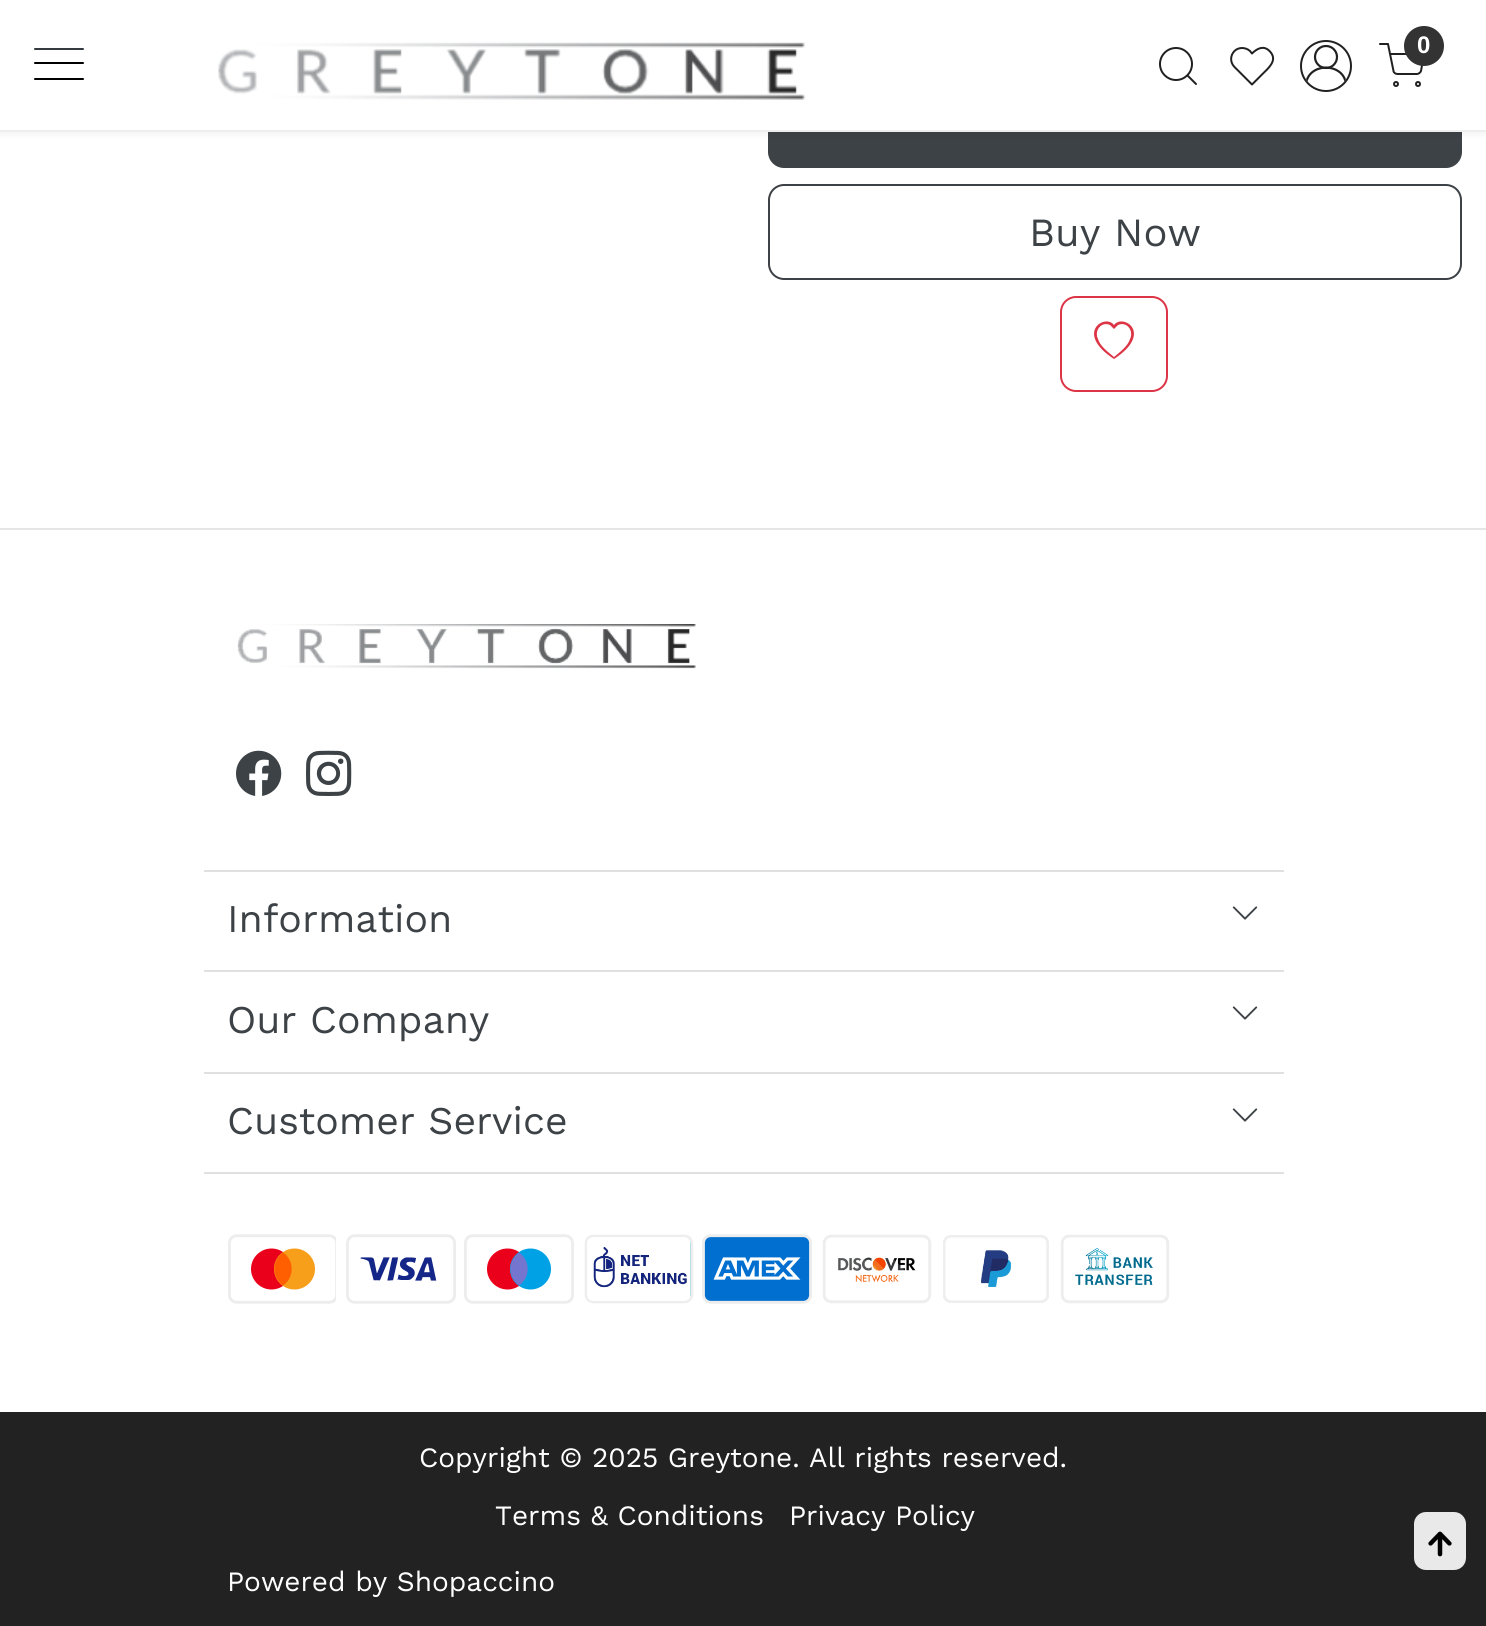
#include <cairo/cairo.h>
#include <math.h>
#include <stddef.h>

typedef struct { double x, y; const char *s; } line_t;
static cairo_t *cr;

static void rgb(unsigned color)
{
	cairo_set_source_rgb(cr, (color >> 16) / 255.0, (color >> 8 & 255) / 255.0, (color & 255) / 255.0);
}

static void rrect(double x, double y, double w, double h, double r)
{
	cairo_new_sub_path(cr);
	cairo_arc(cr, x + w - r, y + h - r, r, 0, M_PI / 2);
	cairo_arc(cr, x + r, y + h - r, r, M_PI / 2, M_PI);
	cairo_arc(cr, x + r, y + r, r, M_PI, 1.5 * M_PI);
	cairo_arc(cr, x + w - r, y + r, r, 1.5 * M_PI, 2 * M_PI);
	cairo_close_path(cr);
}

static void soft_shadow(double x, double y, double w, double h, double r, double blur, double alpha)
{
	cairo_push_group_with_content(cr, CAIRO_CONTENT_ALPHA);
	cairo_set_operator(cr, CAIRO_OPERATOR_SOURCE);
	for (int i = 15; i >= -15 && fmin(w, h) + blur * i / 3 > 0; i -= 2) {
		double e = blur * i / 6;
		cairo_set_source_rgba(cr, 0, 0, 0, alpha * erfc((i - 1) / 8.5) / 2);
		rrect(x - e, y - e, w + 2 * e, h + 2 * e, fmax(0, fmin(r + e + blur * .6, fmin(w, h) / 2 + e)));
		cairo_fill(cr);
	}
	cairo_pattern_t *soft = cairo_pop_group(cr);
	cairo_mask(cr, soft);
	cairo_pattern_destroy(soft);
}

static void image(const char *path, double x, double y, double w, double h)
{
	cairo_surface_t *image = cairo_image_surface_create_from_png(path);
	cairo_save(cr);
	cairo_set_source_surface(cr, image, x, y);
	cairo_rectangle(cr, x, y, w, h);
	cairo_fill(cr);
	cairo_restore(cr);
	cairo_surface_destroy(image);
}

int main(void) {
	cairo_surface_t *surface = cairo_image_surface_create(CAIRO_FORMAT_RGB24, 1486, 1626);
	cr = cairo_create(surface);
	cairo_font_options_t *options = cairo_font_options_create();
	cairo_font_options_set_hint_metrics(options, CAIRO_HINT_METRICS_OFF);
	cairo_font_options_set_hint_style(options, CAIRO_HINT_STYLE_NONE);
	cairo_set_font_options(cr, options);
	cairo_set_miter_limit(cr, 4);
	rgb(0xffffff);
	cairo_paint(cr);
	rgb(0x3d4246);
	rrect(769, 85, 692, 82, 15);
	cairo_fill_preserve(cr);
	cairo_stroke(cr);
	rgb(0x05050a);
	soft_shadow(0, 0, 1486, 132, 0, 5, 0.08);
	rgb(0xeeeeee);
	cairo_rectangle(cr, 0, 130, 1486, 2);
	cairo_fill(cr);
	rgb(0xffffff);
	cairo_rectangle(cr, 0, 0, 1486, 130);
	cairo_fill(cr);
	rgb(0x000000);
	rrect(34, 78, 50, 2, 1);
	cairo_fill(cr);
	rrect(34, 62, 50, 2, 1);
	cairo_fill(cr);
	rgb(0x343a40);
	rrect(34, 48, 50, 2, 1);
	cairo_fill(cr);
	image("img/1.png", 218, 42, 588, 58);
	cairo_arc(cr, 1176, 64, 16, 0, 2 * M_PI);
	rgb(0x212121);
	cairo_stroke(cr);
	cairo_new_path(cr);
	cairo_move_to(cr, 1196, 84);
	cairo_line_to(cr, 1187.5, 75.5);
	cairo_set_line_cap(cr, CAIRO_LINE_CAP_ROUND);
	cairo_set_line_join(cr, CAIRO_LINE_JOIN_ROUND);
	cairo_stroke(cr);
	cairo_new_path(cr);
	cairo_move_to(cr, 1269.5, 51);
	cairo_curve_to(cr, 1263.5, 45, 1257, 48.5, 1252, 53.5);
	cairo_line_to(cr, 1250, 51);
	cairo_curve_to(cr, 1245.5, 47, 1238.5, 47, 1234.5, 51);
	cairo_curve_to(cr, 1230, 55.5, 1230, 62.5, 1234.5, 67);
	cairo_line_to(cr, 1252, 84.5);
	cairo_line_to(cr, 1262.5, 74);
	cairo_curve_to(cr, 1268.5, 68, 1278.5, 60, 1269.5, 51);
	cairo_close_path(cr);
	cairo_stroke(cr);
	cairo_arc(cr, 1326, 66, 25, 0, 2 * M_PI);
	cairo_set_line_cap(cr, CAIRO_LINE_CAP_BUTT);
	cairo_set_line_join(cr, CAIRO_LINE_JOIN_MITER);
	cairo_stroke(cr);
	cairo_save(cr);
	rrect(1302, 42, 48, 48, 24);
	cairo_clip(cr);
	cairo_new_path(cr);
	cairo_move_to(cr, 1306, 86);
	cairo_curve_to(cr, 1306, 61.5, 1346, 61.5, 1346, 86);
	cairo_set_line_width(cr, 2.2);
	cairo_set_line_cap(cr, CAIRO_LINE_CAP_SQUARE);
	cairo_stroke(cr);
	cairo_restore(cr);
	cairo_arc(cr, 1326, 57, 11, 0, 2 * M_PI);
	cairo_set_line_width(cr, 2.2);
	cairo_stroke(cr);
	cairo_new_path(cr);
	cairo_move_to(cr, 1380, 44);
	cairo_line_to(cr, 1388, 44);
	cairo_line_to(cr, 1393.5, 71);
	cairo_curve_to(cr, 1393.5, 72.5, 1395.5, 74, 1397.5, 74);
	cairo_line_to(cr, 1417, 74);
	cairo_curve_to(cr, 1418.5, 74, 1420.5, 72.5, 1421, 71);
	cairo_line_to(cr, 1424, 54);
	cairo_line_to(cr, 1390, 54);
	cairo_set_line_width(cr, 2);
	cairo_set_line_cap(cr, CAIRO_LINE_CAP_ROUND);
	cairo_set_line_join(cr, CAIRO_LINE_JOIN_ROUND);
	cairo_stroke(cr);
	rgb(0x333333);
	cairo_arc(cr, 1424, 46, 20, 0, 2 * M_PI);
	cairo_fill(cr);
	cairo_arc(cr, 1396, 84, 2, 0, 2 * M_PI);
	rgb(0x212121);
	cairo_set_line_cap(cr, CAIRO_LINE_CAP_BUTT);
	cairo_set_line_join(cr, CAIRO_LINE_JOIN_MITER);
	cairo_stroke(cr);
	cairo_arc(cr, 1418, 84, 2, 0, 2 * M_PI);
	cairo_stroke(cr);
	rrect(769, 185, 692, 94, 15);
	rgb(0x3d4246);
	cairo_stroke(cr);
	rrect(1061, 297, 106, 94, 15);
	rgb(0xdc3545);
	cairo_stroke(cr);
	cairo_new_path(cr);
	cairo_move_to(cr, 1114, 329);
	cairo_line_to(cr, 1110, 325);
	cairo_curve_to(cr, 1101, 321, 1094, 331, 1098, 339);
	cairo_curve_to(cr, 1100, 346, 1108, 352, 1114, 357);
	cairo_curve_to(cr, 1120, 352, 1128, 346, 1130, 339);
	cairo_curve_to(cr, 1134, 331, 1127, 321, 1118, 325);
	cairo_close_path(cr);
	cairo_move_to(cr, 1114, 359);
	cairo_curve_to(cr, 1074, 333, 1105, 313, 1114, 325);
	cairo_curve_to(cr, 1123, 313, 1154, 333, 1114, 359);
	cairo_close_path(cr);
	cairo_fill(cr);
	rgb(0xe6e6e6);
	cairo_rectangle(cr, 0, 528, 1486, 2);
	cairo_fill(cr);
	image("img/2.png", 237, 624, 459, 45);
	image("img/3.png", 236, 750, 46, 46);
	image("img/4.png", 306, 750, 46, 46);
	rgb(0xe0e0e0);
	cairo_rectangle(cr, 204, 870, 1080, 2);
	cairo_fill(cr);
	cairo_rectangle(cr, 204, 970, 1080, 2);
	cairo_fill(cr);
	image("img/5.png", 1232, 906, 26, 14);
	cairo_rectangle(cr, 204, 1072, 1080, 2);
	cairo_fill(cr);
	image("img/5.png", 1232, 1006, 26, 14);
	cairo_rectangle(cr, 204, 1172, 1080, 2);
	cairo_fill(cr);
	image("img/5.png", 1232, 1108, 26, 14);
	image("img/6.png", 228, 1234, 108, 70);
	image("img/7.png", 346, 1234, 110, 70);
	image("img/8.png", 464, 1234, 110, 70);
	image("img/9.png", 584, 1234, 110, 70);
	image("img/10.png", 702, 1234, 110, 70);
	image("img/11.png", 822, 1234, 110, 70);
	image("img/12.png", 943, 1235, 106, 68);
	image("img/13.png", 1060, 1234, 110, 70);
	rgb(0x222222);
	cairo_rectangle(cr, 0, 1412, 1486, 214);
	cairo_fill(cr);
	rgb(0xe9e9e9);
	rrect(1414, 1512, 52, 58, 12);
	cairo_fill(cr);
	image("img/14.png", 1428, 1531, 24, 26);
	cairo_select_font_face(cr, "Liberation Sans", CAIRO_FONT_SLANT_NORMAL, CAIRO_FONT_WEIGHT_BOLD);
	cairo_set_font_size(cr, 24);
	rgb(0xffffff);
	cairo_move_to(cr, 1417, 53);
	cairo_show_text(cr, "0");
	cairo_select_font_face(cr, "Work Sans", CAIRO_FONT_SLANT_NORMAL, CAIRO_FONT_WEIGHT_NORMAL);
	cairo_set_font_size(cr, 40);
	rgb(0x3d4246);
	cairo_move_to(cr, 1029, 246);
	cairo_show_text(cr, "Buy Now");
	cairo_set_font_size(cr, 39.25);
	{
		static const line_t items[] = {
			{227, 932, "Information"},
			{227, 1033, "Our Company"},
			{227, 1134, "Customer Service"},
		};
		for (size_t i = 0; i < sizeof items / sizeof *items; i++) {
			cairo_move_to(cr, items[i].x, items[i].y);
			cairo_show_text(cr, items[i].s);
		}
	}
	cairo_set_font_size(cr, 28);
	rgb(0xffffff);
	{
		static const line_t items[] = {
			{419, 1467, "Copyright © 2025 Greytone. All rights reserved."},
			{495, 1525, "Terms & Conditions"},
			{789, 1525, "Privacy Policy"},
			{227, 1591, "Powered by Shopaccino"},
		};
		for (size_t i = 0; i < sizeof items / sizeof *items; i++) {
			cairo_move_to(cr, items[i].x, items[i].y);
			cairo_show_text(cr, items[i].s);
		}
	}
	cairo_surface_write_to_png(surface, "page.png");
	cairo_font_options_destroy(options);
	cairo_destroy(cr);
	cairo_surface_destroy(surface);
	return 0;
}
